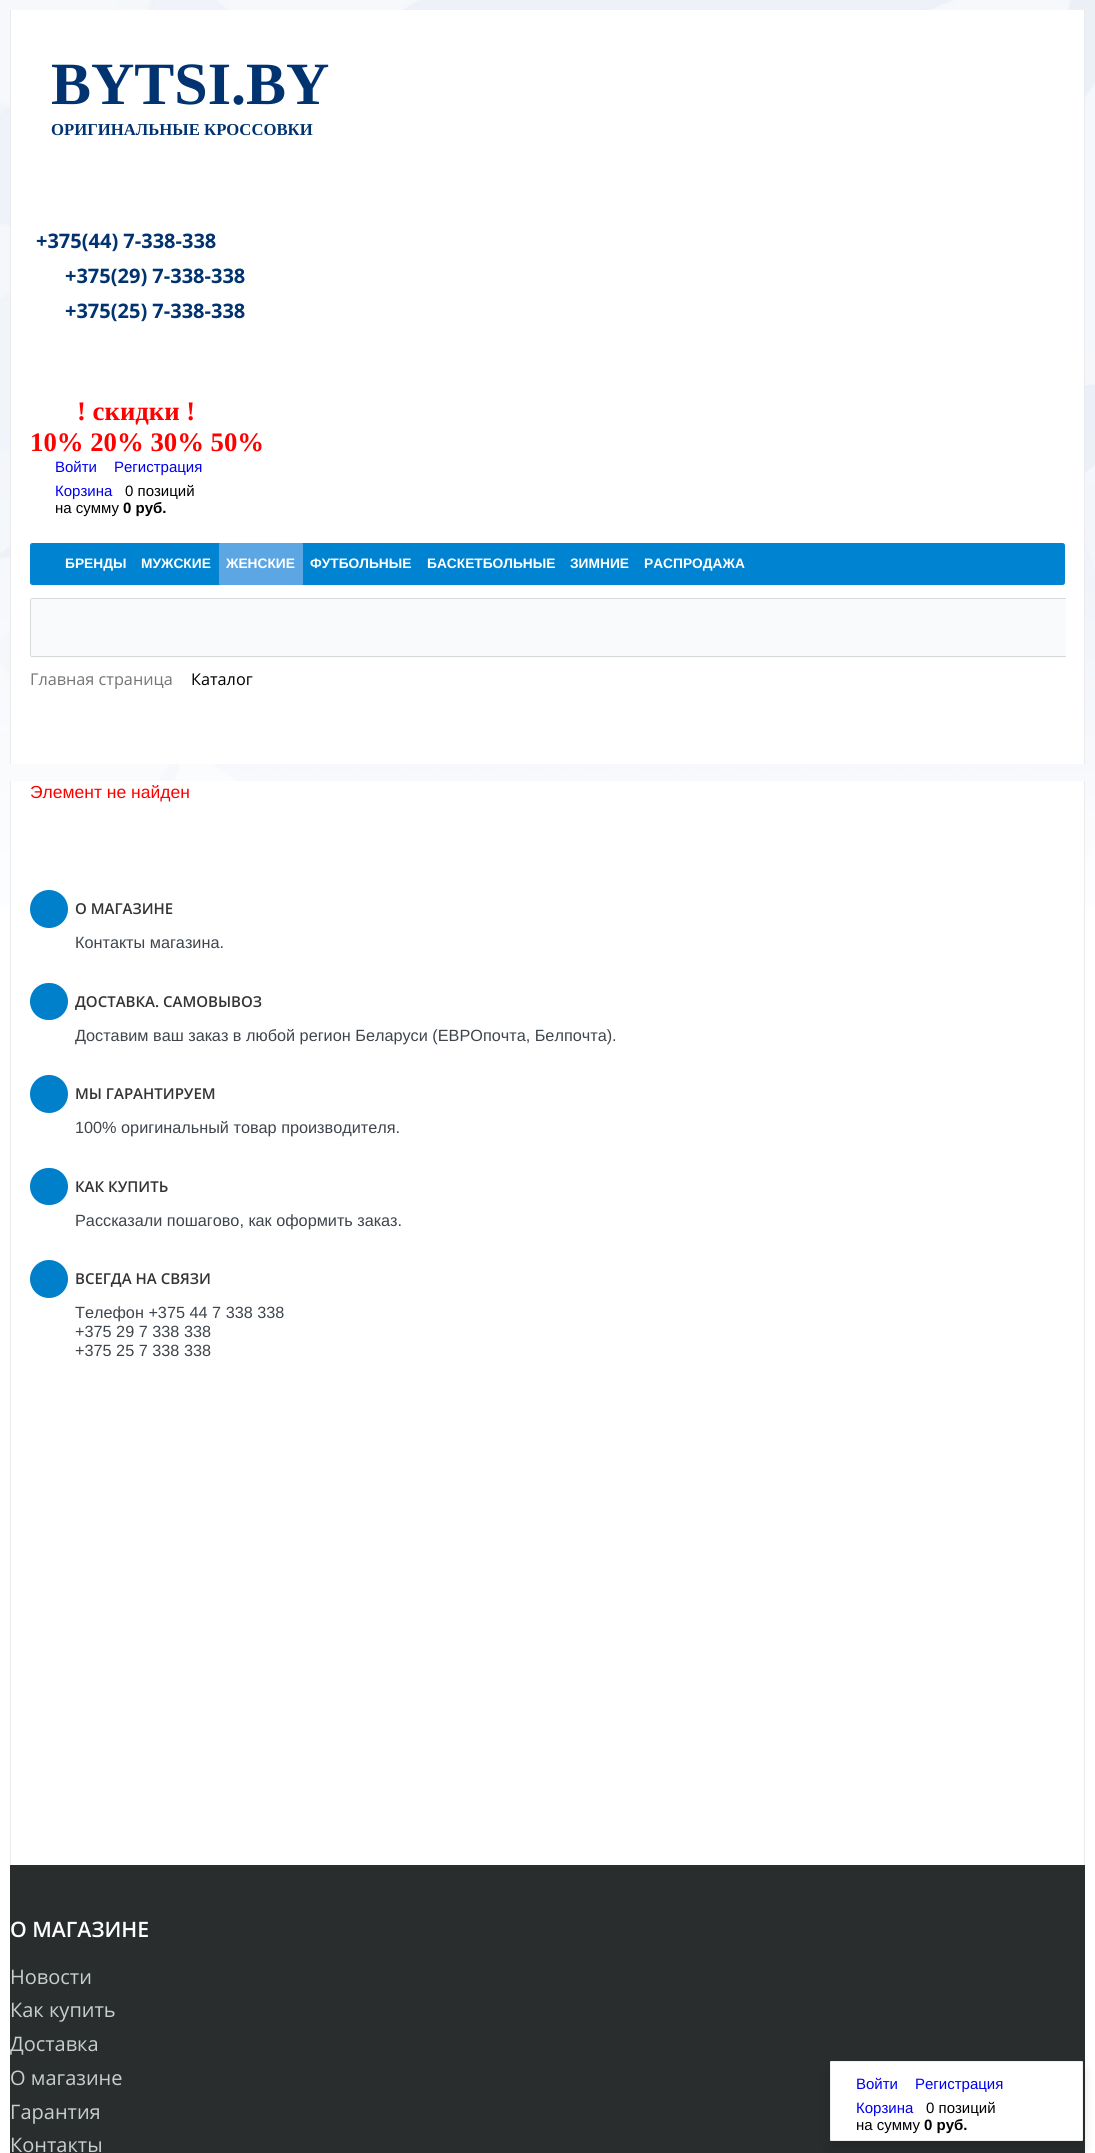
#include <cairo/cairo.h>
#include <math.h>
#include <stddef.h>

typedef struct { double x, y; const char *s; } line_t;
typedef struct { double x, y, w, h; unsigned color; } box_t;
static cairo_t *cr;

static void rgb(unsigned color)
{
	cairo_set_source_rgb(cr, (color >> 16) / 255.0, (color >> 8 & 255) / 255.0, (color & 255) / 255.0);
}

static void rrect(double x, double y, double w, double h, double r)
{
	cairo_new_sub_path(cr);
	cairo_arc(cr, x + w - r, y + h - r, r, 0, M_PI / 2);
	cairo_arc(cr, x + r, y + h - r, r, M_PI / 2, M_PI);
	cairo_arc(cr, x + r, y + r, r, M_PI, 1.5 * M_PI);
	cairo_arc(cr, x + w - r, y + r, r, 1.5 * M_PI, 2 * M_PI);
	cairo_close_path(cr);
}

static void soft_shadow(double x, double y, double w, double h, double r, double blur, double alpha)
{
	cairo_push_group_with_content(cr, CAIRO_CONTENT_ALPHA);
	cairo_set_operator(cr, CAIRO_OPERATOR_SOURCE);
	for (int i = 15; i >= -15 && fmin(w, h) + blur * i / 3 > 0; i -= 2) {
		double e = blur * i / 6;
		cairo_set_source_rgba(cr, 0, 0, 0, alpha * erfc((i - 1) / 8.5) / 2);
		rrect(x - e, y - e, w + 2 * e, h + 2 * e, fmax(0, fmin(r + e + blur * .6, fmin(w, h) / 2 + e)));
		cairo_fill(cr);
	}
	cairo_pattern_t *soft = cairo_pop_group(cr);
	cairo_mask(cr, soft);
	cairo_pattern_destroy(soft);
}

static void image(const char *path, double x, double y, double w, double h)
{
	cairo_surface_t *image = cairo_image_surface_create_from_png(path);
	cairo_save(cr);
	cairo_set_source_surface(cr, image, x, y);
	cairo_rectangle(cr, x, y, w, h);
	cairo_fill(cr);
	cairo_restore(cr);
	cairo_surface_destroy(image);
}

int main(void) {
	cairo_surface_t *surface = cairo_image_surface_create(CAIRO_FORMAT_RGB24, 1095, 2153);
	cr = cairo_create(surface);
	cairo_font_options_t *options = cairo_font_options_create();
	cairo_font_options_set_hint_metrics(options, CAIRO_HINT_METRICS_OFF);
	cairo_font_options_set_hint_style(options, CAIRO_HINT_STYLE_NONE);
	cairo_set_font_options(cr, options);
	cairo_set_miter_limit(cr, 4);
	rgb(0xffffff);
	cairo_paint(cr);
	image("img/1.png", 0, 0, 1095, 905);
	{
		static const box_t items[] = {
			{11, 10, 1073, 754, 0xffffff},
			{1084, 10, 1, 754, 0xeaebec},
			{10, 10, 1, 754, 0xeaebec},
		};
		for (size_t i = 0; i < sizeof items / sizeof *items; i++) {
			rgb(items[i].color);
			cairo_rectangle(cr, items[i].x, items[i].y, items[i].w, items[i].h);
			cairo_fill(cr);
		}
	}
	rgb(0x0083d1);
	rrect(30, 543, 1035, 42, 2.5);
	cairo_fill(cr);
	rgb(0x5ca6e4);
	rrect(219, 543, 84, 42, 1);
	cairo_fill(cr);
	rgb(0xf8fafc);
	cairo_new_path(cr);
	cairo_move_to(cr, 32.5, 598);
	cairo_line_to(cr, 1066, 598);
	cairo_line_to(cr, 1066, 658);
	cairo_line_to(cr, 32.5, 658);
	cairo_curve_to(cr, 31, 658, 30, 657, 30, 655.5);
	cairo_line_to(cr, 30, 600.5);
	cairo_curve_to(cr, 30, 599, 31, 598, 32.5, 598);
	cairo_close_path(cr);
	cairo_fill(cr);
	{
		static const box_t items[] = {
			{31, 598, 1035, 1, 0xd5dadc},
			{31, 656, 1035, 1, 0xd5dadc},
			{30, 599, 1, 57, 0xd5dadc},
			{11, 781, 1073, 124, 0xffffff},
			{1084, 781, 1, 1084, 0xeaebec},
			{10, 781, 1, 1084, 0xeaebec},
		};
		for (size_t i = 0; i < sizeof items / sizeof *items; i++) {
			rgb(items[i].color);
			cairo_rectangle(cr, items[i].x, items[i].y, items[i].w, items[i].h);
			cairo_fill(cr);
		}
	}
	rgb(0x007fca);
	cairo_arc(cr, 49, 909, 19, 0, 2 * M_PI);
	cairo_fill(cr);
	rrect(30, 983, 38, 37, 18.5);
	cairo_fill(cr);
	cairo_arc(cr, 49, 1094, 19, 0, 2 * M_PI);
	cairo_fill(cr);
	rrect(30, 1168, 38, 37, 18.5);
	cairo_fill(cr);
	cairo_arc(cr, 49, 1279, 19, 0, 2 * M_PI);
	cairo_fill(cr);
	rgb(0x292d2e);
	cairo_rectangle(cr, 10, 1865, 1075, 288);
	cairo_fill(cr);
	rgb(0x000000);
	soft_shadow(830, 2070, 253, 80, 1, 6, 0.15);
	rgb(0xffffff);
	rrect(830.5, 2061.5, 252, 79, 0.5);
	cairo_fill_preserve(cr);
	rgb(0xf0f0f0);
	cairo_set_line_width(cr, 1);
	cairo_stroke(cr);
	cairo_select_font_face(cr, "Liberation Serif", CAIRO_FONT_SLANT_NORMAL, CAIRO_FONT_WEIGHT_BOLD);
	cairo_set_font_size(cr, 60);
	rgb(0x003370);
	cairo_move_to(cr, 51, 104);
	cairo_show_text(cr, "BYTSI.BY");
	cairo_set_font_size(cr, 16.7);
	cairo_move_to(cr, 51, 135);
	cairo_show_text(cr, "ОРИГИНАЛЬНЫЕ КРОССОВКИ");
	cairo_select_font_face(cr, "Open Sans", CAIRO_FONT_SLANT_NORMAL, CAIRO_FONT_WEIGHT_BOLD);
	cairo_set_font_size(cr, 20);
	{
		static const line_t items[] = {
			{36, 248, "+375(44) 7-338-338"},
			{65, 283, "+375(29) 7-338-338"},
			{65, 318, "+375(25) 7-338-338"},
		};
		for (size_t i = 0; i < sizeof items / sizeof *items; i++) {
			cairo_move_to(cr, items[i].x, items[i].y);
			cairo_show_text(cr, items[i].s);
		}
	}
	cairo_select_font_face(cr, "Liberation Serif", CAIRO_FONT_SLANT_NORMAL, CAIRO_FONT_WEIGHT_BOLD);
	cairo_set_font_size(cr, 26.75);
	rgb(0xff0000);
	cairo_move_to(cr, 77, 420);
	cairo_show_text(cr, "! скидки !");
	cairo_move_to(cr, 30, 451);
	cairo_show_text(cr, "10% 20% 30% 50%");
	cairo_select_font_face(cr, "Liberation Sans", CAIRO_FONT_SLANT_NORMAL, CAIRO_FONT_WEIGHT_NORMAL);
	cairo_set_font_size(cr, 15);
	rgb(0x0000ee);
	{
		static const line_t items[] = {
			{55, 472, "Войти"},
			{114, 472, "Регистрация"},
			{55, 496, "Корзина"},
		};
		for (size_t i = 0; i < sizeof items / sizeof *items; i++) {
			cairo_move_to(cr, items[i].x, items[i].y);
			cairo_show_text(cr, items[i].s);
		}
	}
	rgb(0x000000);
	cairo_move_to(cr, 125, 496);
	cairo_show_text(cr, "0 позиций");
	cairo_move_to(cr, 55, 513);
	cairo_show_text(cr, "на сумму");
	cairo_select_font_face(cr, "Liberation Sans", CAIRO_FONT_SLANT_NORMAL, CAIRO_FONT_WEIGHT_BOLD);
	cairo_move_to(cr, 123, 513);
	cairo_show_text(cr, "0 руб.");
	cairo_set_font_size(cr, 13.75);
	rgb(0xffffff);
	{
		static const line_t items[] = {
			{65, 568, "БРЕНДЫ"},
			{141, 568, "МУЖСКИЕ"},
			{226, 568, "ЖЕНСКИЕ"},
			{310, 568, "ФУТБОЛЬНЫЕ"},
			{427, 568, "БАСКЕТБОЛЬНЫЕ"},
			{570, 568, "ЗИМНИЕ"},
			{644, 568, "РАСПРОДАЖА"},
		};
		for (size_t i = 0; i < sizeof items / sizeof *items; i++) {
			cairo_move_to(cr, items[i].x, items[i].y);
			cairo_show_text(cr, items[i].s);
		}
	}
	cairo_select_font_face(cr, "Open Sans", CAIRO_FONT_SLANT_NORMAL, CAIRO_FONT_WEIGHT_NORMAL);
	cairo_set_font_size(cr, 16.25);
	rgb(0x757575);
	cairo_move_to(cr, 30, 685);
	cairo_show_text(cr, "Главная страница");
	rgb(0x000000);
	cairo_move_to(cr, 191, 685);
	cairo_show_text(cr, "Каталог");
	cairo_select_font_face(cr, "Liberation Sans", CAIRO_FONT_SLANT_NORMAL, CAIRO_FONT_WEIGHT_NORMAL);
	cairo_set_font_size(cr, 17.5);
	rgb(0xff0000);
	cairo_move_to(cr, 30, 798);
	cairo_show_text(cr, "Элемент не найден");
	cairo_select_font_face(cr, "Open Sans SemiBold", CAIRO_FONT_SLANT_NORMAL, CAIRO_FONT_WEIGHT_NORMAL);
	cairo_set_font_size(cr, 15);
	rgb(0x343434);
	cairo_move_to(cr, 75, 914);
	cairo_show_text(cr, "О МАГАЗИНЕ");
	cairo_select_font_face(cr, "Liberation Sans", CAIRO_FONT_SLANT_NORMAL, CAIRO_FONT_WEIGHT_NORMAL);
	cairo_set_font_size(cr, 16.25);
	rgb(0x3e454c);
	cairo_move_to(cr, 75, 948);
	cairo_show_text(cr, "Контакты магазина.");
	cairo_select_font_face(cr, "Open Sans SemiBold", CAIRO_FONT_SLANT_NORMAL, CAIRO_FONT_WEIGHT_NORMAL);
	cairo_set_font_size(cr, 15);
	rgb(0x343434);
	cairo_move_to(cr, 75, 1007);
	cairo_show_text(cr, "ДОСТАВКА. САМОВЫВОЗ");
	cairo_select_font_face(cr, "Liberation Sans", CAIRO_FONT_SLANT_NORMAL, CAIRO_FONT_WEIGHT_NORMAL);
	cairo_set_font_size(cr, 16.25);
	rgb(0x3e454c);
	cairo_move_to(cr, 75, 1041);
	cairo_show_text(cr, "Доставим ваш заказ в любой регион Беларуси (ЕВРОпочта, Белпочта).");
	cairo_select_font_face(cr, "Open Sans SemiBold", CAIRO_FONT_SLANT_NORMAL, CAIRO_FONT_WEIGHT_NORMAL);
	cairo_set_font_size(cr, 15);
	rgb(0x343434);
	cairo_move_to(cr, 75, 1099);
	cairo_show_text(cr, "МЫ ГАРАНТИРУЕМ");
	cairo_select_font_face(cr, "Liberation Sans", CAIRO_FONT_SLANT_NORMAL, CAIRO_FONT_WEIGHT_NORMAL);
	cairo_set_font_size(cr, 16.25);
	rgb(0x3e454c);
	cairo_move_to(cr, 75, 1133);
	cairo_show_text(cr, "100% оригинальный товар производителя.");
	cairo_select_font_face(cr, "Open Sans SemiBold", CAIRO_FONT_SLANT_NORMAL, CAIRO_FONT_WEIGHT_NORMAL);
	cairo_set_font_size(cr, 15);
	rgb(0x343434);
	cairo_move_to(cr, 75, 1192);
	cairo_show_text(cr, "КАК КУПИТЬ");
	cairo_select_font_face(cr, "Liberation Sans", CAIRO_FONT_SLANT_NORMAL, CAIRO_FONT_WEIGHT_NORMAL);
	cairo_set_font_size(cr, 16.25);
	rgb(0x3e454c);
	cairo_move_to(cr, 75, 1226);
	cairo_show_text(cr, "Рассказали пошагово, как оформить заказ.");
	cairo_select_font_face(cr, "Open Sans SemiBold", CAIRO_FONT_SLANT_NORMAL, CAIRO_FONT_WEIGHT_NORMAL);
	cairo_set_font_size(cr, 15);
	rgb(0x343434);
	cairo_move_to(cr, 75, 1284);
	cairo_show_text(cr, "ВСЕГДА НА СВЯЗИ");
	cairo_select_font_face(cr, "Liberation Sans", CAIRO_FONT_SLANT_NORMAL, CAIRO_FONT_WEIGHT_NORMAL);
	cairo_set_font_size(cr, 16.25);
	rgb(0x3e454c);
	{
		static const line_t items[] = {
			{75, 1318, "Телефон +375 44 7 338 338"},
			{75, 1337, "+375 29 7 338 338"},
			{75, 1356, "+375 25 7 338 338"},
		};
		for (size_t i = 0; i < sizeof items / sizeof *items; i++) {
			cairo_move_to(cr, items[i].x, items[i].y);
			cairo_show_text(cr, items[i].s);
		}
	}
	cairo_select_font_face(cr, "Open Sans SemiBold", CAIRO_FONT_SLANT_NORMAL, CAIRO_FONT_WEIGHT_NORMAL);
	cairo_set_font_size(cr, 21.25);
	rgb(0xffffff);
	cairo_move_to(cr, 10, 1937);
	cairo_show_text(cr, "О МАГАЗИНЕ");
	cairo_select_font_face(cr, "Open Sans", CAIRO_FONT_SLANT_NORMAL, CAIRO_FONT_WEIGHT_NORMAL);
	cairo_set_font_size(cr, 20);
	rgb(0xc8cece);
	{
		static const line_t items[] = {
			{10, 1984, "Новости"},
			{10, 2017, "Как купить"},
			{10, 2051, "Доставка"},
			{10, 2085, "О магазине"},
			{10, 2119, "Гарантия"},
			{10, 2152, "Контакты"},
		};
		for (size_t i = 0; i < sizeof items / sizeof *items; i++) {
			cairo_move_to(cr, items[i].x, items[i].y);
			cairo_show_text(cr, items[i].s);
		}
	}
	cairo_select_font_face(cr, "Liberation Sans", CAIRO_FONT_SLANT_NORMAL, CAIRO_FONT_WEIGHT_NORMAL);
	cairo_set_font_size(cr, 15);
	rgb(0x0000ee);
	{
		static const line_t items[] = {
			{856, 2089, "Войти"},
			{915, 2089, "Регистрация"},
			{856, 2113, "Корзина"},
		};
		for (size_t i = 0; i < sizeof items / sizeof *items; i++) {
			cairo_move_to(cr, items[i].x, items[i].y);
			cairo_show_text(cr, items[i].s);
		}
	}
	rgb(0x000000);
	cairo_move_to(cr, 926, 2113);
	cairo_show_text(cr, "0 позиций");
	cairo_move_to(cr, 856, 2130);
	cairo_show_text(cr, "на сумму");
	cairo_select_font_face(cr, "Liberation Sans", CAIRO_FONT_SLANT_NORMAL, CAIRO_FONT_WEIGHT_BOLD);
	cairo_move_to(cr, 924, 2130);
	cairo_show_text(cr, "0 руб.");
	cairo_surface_write_to_png(surface, "page.png");
	cairo_font_options_destroy(options);
	cairo_destroy(cr);
	cairo_surface_destroy(surface);
	return 0;
}
